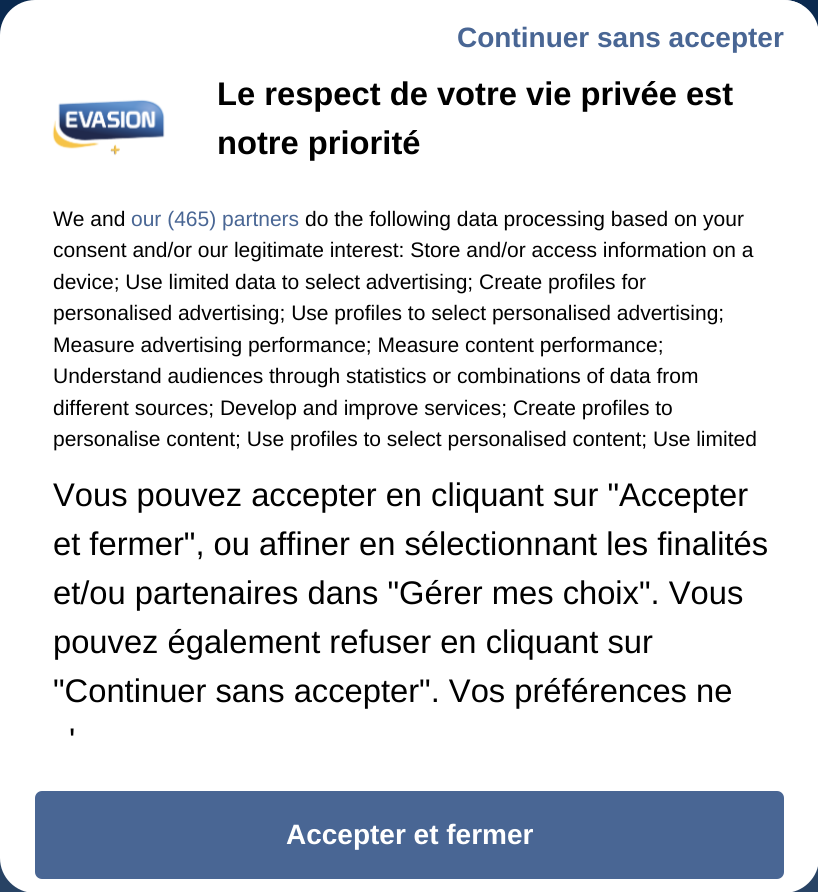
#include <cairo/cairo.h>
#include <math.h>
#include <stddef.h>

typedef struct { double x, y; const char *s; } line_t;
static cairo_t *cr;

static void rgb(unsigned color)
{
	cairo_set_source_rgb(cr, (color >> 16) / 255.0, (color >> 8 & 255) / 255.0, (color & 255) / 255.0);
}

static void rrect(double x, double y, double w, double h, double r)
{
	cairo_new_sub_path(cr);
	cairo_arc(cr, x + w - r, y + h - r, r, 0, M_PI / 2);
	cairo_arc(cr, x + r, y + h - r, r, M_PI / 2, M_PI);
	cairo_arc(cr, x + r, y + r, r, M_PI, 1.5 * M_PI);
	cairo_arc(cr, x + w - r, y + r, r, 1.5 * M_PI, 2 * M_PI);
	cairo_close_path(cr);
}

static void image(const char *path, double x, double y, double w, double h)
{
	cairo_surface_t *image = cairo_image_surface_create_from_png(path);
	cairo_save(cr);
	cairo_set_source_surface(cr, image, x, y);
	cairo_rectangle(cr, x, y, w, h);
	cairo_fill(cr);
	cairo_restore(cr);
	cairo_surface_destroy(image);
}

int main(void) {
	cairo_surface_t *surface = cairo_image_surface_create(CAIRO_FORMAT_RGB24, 818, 892);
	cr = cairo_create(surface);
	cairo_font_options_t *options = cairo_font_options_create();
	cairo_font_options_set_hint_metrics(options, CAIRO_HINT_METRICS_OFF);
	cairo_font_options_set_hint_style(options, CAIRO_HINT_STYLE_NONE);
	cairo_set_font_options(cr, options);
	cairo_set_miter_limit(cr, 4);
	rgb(0x0a294f);
	cairo_paint(cr);
	rgb(0x284364);
	cairo_rectangle(cr, 0, 858, 818, 34);
	cairo_fill(cr);
	rgb(0xffffff);
	rrect(0, 0, 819, 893, 35);
	cairo_fill(cr);
	cairo_save(cr);
	rrect(0, 0, 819, 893, 35);
	cairo_clip(cr);
	rrect(439, 0, 363, 77, 7);
	cairo_fill(cr);
	cairo_restore(cr);
	rgb(0x496694);
	rrect(37.5, 793.5, 744, 83, 4.5);
	cairo_fill_preserve(cr);
	cairo_set_line_width(cr, 5);
	cairo_stroke(cr);
	image("img/1.png", 52, 99, 113, 57);
	cairo_select_font_face(cr, "Liberation Sans", CAIRO_FONT_SLANT_NORMAL, CAIRO_FONT_WEIGHT_BOLD);
	cairo_set_font_size(cr, 28);
	cairo_move_to(cr, 457, 47);
	cairo_show_text(cr, "Continuer sans accepter");
	rgb(0xffffff);
	cairo_move_to(cr, 286, 844);
	cairo_show_text(cr, "Accepter et fermer");
	cairo_set_font_size(cr, 32.7);
	rgb(0x000000);
	cairo_move_to(cr, 217, 105);
	cairo_show_text(cr, "Le respect de votre vie privée est");
	cairo_move_to(cr, 217, 154);
	cairo_show_text(cr, "notre priorité");
	cairo_select_font_face(cr, "Liberation Sans", CAIRO_FONT_SLANT_NORMAL, CAIRO_FONT_WEIGHT_NORMAL);
	cairo_set_font_size(cr, 21);
	cairo_move_to(cr, 53, 226);
	cairo_show_text(cr, "We and");
	rgb(0x496694);
	cairo_move_to(cr, 131, 226);
	cairo_show_text(cr, "our (465) partners");
	rgb(0x000000);
	{
		static const line_t items[] = {
			{305, 226, "do the following data processing based on your"},
			{53, 257, "consent and/or our legitimate interest: Store and/or access information on a"},
			{53, 289, "device; Use limited data to select advertising; Create profiles for"},
			{53, 320, "personalised advertising; Use profiles to select personalised advertising;"},
			{53, 352, "Measure advertising performance; Measure content performance;"},
			{53, 383, "Understand audiences through statistics or combinations of data from"},
			{53, 415, "different sources; Develop and improve services; Create profiles to"},
			{53, 446, "personalise content; Use profiles to select personalised content; Use limited"},
		};
		for (size_t i = 0; i < sizeof items / sizeof *items; i++) {
			cairo_move_to(cr, items[i].x, items[i].y);
			cairo_show_text(cr, items[i].s);
		}
	}
	cairo_set_font_size(cr, 32.7);
	{
		static const line_t items[] = {
			{53, 506, "Vous pouvez accepter en cliquant sur \"Accepter"},
			{53, 555, "et fermer\", ou affiner en sélectionnant les finalités"},
			{53, 604, "et/ou partenaires dans \"Gérer mes choix\". Vous"},
			{53, 653, "pouvez également refuser en cliquant sur"},
			{53, 702, "\"Continuer sans accepter\". Vos préférences ne"},
			{69, 751, "'"},
		};
		for (size_t i = 0; i < sizeof items / sizeof *items; i++) {
			cairo_move_to(cr, items[i].x, items[i].y);
			cairo_show_text(cr, items[i].s);
		}
	}
	cairo_surface_write_to_png(surface, "page.png");
	cairo_font_options_destroy(options);
	cairo_destroy(cr);
	cairo_surface_destroy(surface);
	return 0;
}
